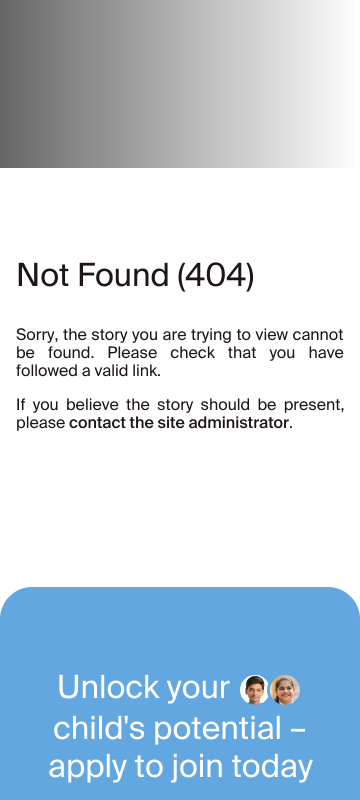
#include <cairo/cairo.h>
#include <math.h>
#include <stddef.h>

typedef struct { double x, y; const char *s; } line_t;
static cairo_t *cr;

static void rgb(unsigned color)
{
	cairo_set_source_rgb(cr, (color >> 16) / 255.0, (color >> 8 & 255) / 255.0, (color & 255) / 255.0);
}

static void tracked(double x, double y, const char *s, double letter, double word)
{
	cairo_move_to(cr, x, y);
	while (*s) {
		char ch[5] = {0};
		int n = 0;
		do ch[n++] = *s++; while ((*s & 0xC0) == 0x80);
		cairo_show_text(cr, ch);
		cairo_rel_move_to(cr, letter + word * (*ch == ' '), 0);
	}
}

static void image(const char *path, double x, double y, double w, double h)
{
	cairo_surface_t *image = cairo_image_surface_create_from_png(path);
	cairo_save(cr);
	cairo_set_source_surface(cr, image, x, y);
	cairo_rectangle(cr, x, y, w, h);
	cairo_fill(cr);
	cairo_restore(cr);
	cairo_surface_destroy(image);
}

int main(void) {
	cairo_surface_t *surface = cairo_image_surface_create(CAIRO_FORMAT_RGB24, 360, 800);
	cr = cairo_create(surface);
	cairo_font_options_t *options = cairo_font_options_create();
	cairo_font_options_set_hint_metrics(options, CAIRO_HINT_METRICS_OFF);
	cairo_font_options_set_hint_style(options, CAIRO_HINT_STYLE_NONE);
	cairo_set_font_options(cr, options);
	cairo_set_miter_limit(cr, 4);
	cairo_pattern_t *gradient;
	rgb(0xffffff);
	cairo_paint(cr);
	gradient = cairo_pattern_create_linear(0, -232, 360, -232);
	cairo_pattern_add_color_stop_rgba(gradient, 0, 0.4, 0.4, 0.4, 1);
	cairo_pattern_add_color_stop_rgba(gradient, 1, 1, 1, 1, 1);
	cairo_set_source(cr, gradient);
	cairo_pattern_destroy(gradient);
	cairo_rectangle(cr, 0, 0, 354, 168);
	cairo_fill(cr);
	rgb(0x62a7df);
	cairo_new_path(cr);
	cairo_move_to(cr, 32, 587);
	cairo_line_to(cr, 328, 587);
	cairo_curve_to(cr, 345.5, 587, 360, 601.5, 360, 619);
	cairo_line_to(cr, 360, 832);
	cairo_line_to(cr, 0, 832);
	cairo_line_to(cr, 0, 619);
	cairo_curve_to(cr, 0, 601.5, 14.5, 587, 32, 587);
	cairo_close_path(cr);
	cairo_fill(cr);
	image("img/1.png", 240, 675, 29, 30);
	cairo_arc(cr, 285, 690, 16.5, 0, 2 * M_PI);
	cairo_set_line_width(cr, 3);
	cairo_stroke(cr);
	image("img/2.png", 270, 675, 30, 30);
	cairo_select_font_face(cr, "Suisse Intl", CAIRO_FONT_SLANT_NORMAL, CAIRO_FONT_WEIGHT_NORMAL);
	cairo_set_font_size(cr, 32);
	rgb(0x1e1515);
	cairo_move_to(cr, 16, 286);
	cairo_show_text(cr, "Not Found (404)");
	cairo_set_font_size(cr, 16);
	tracked(16, 340, "Sorry, the story you are trying to view cannot", 0, 0.75);
	tracked(16, 358, "be found. Please check that you have", 0, 9.25);
	cairo_move_to(cr, 16, 376);
	cairo_show_text(cr, "followed a valid link.");
	tracked(16, 410, "If you believe the story should be present,", 0, 3.5);
	cairo_move_to(cr, 16, 428);
	cairo_show_text(cr, "please");
	cairo_select_font_face(cr, "Suisse Intl Medium", CAIRO_FONT_SLANT_NORMAL, CAIRO_FONT_WEIGHT_NORMAL);
	cairo_move_to(cr, 69, 428);
	cairo_show_text(cr, "contact the site administrator");
	cairo_select_font_face(cr, "Suisse Intl", CAIRO_FONT_SLANT_NORMAL, CAIRO_FONT_WEIGHT_NORMAL);
	cairo_move_to(cr, 289, 428);
	cairo_show_text(cr, ".");
	cairo_set_font_size(cr, 32);
	rgb(0xffffff);
	{
		static const line_t items[] = {
			{57, 698, "Unlock your"},
			{53, 739, "child's potential –"},
			{48, 777, "apply to join today"},
		};
		for (size_t i = 0; i < sizeof items / sizeof *items; i++) {
			cairo_move_to(cr, items[i].x, items[i].y);
			cairo_show_text(cr, items[i].s);
		}
	}
	cairo_surface_write_to_png(surface, "page.png");
	cairo_font_options_destroy(options);
	cairo_destroy(cr);
	cairo_surface_destroy(surface);
	return 0;
}
